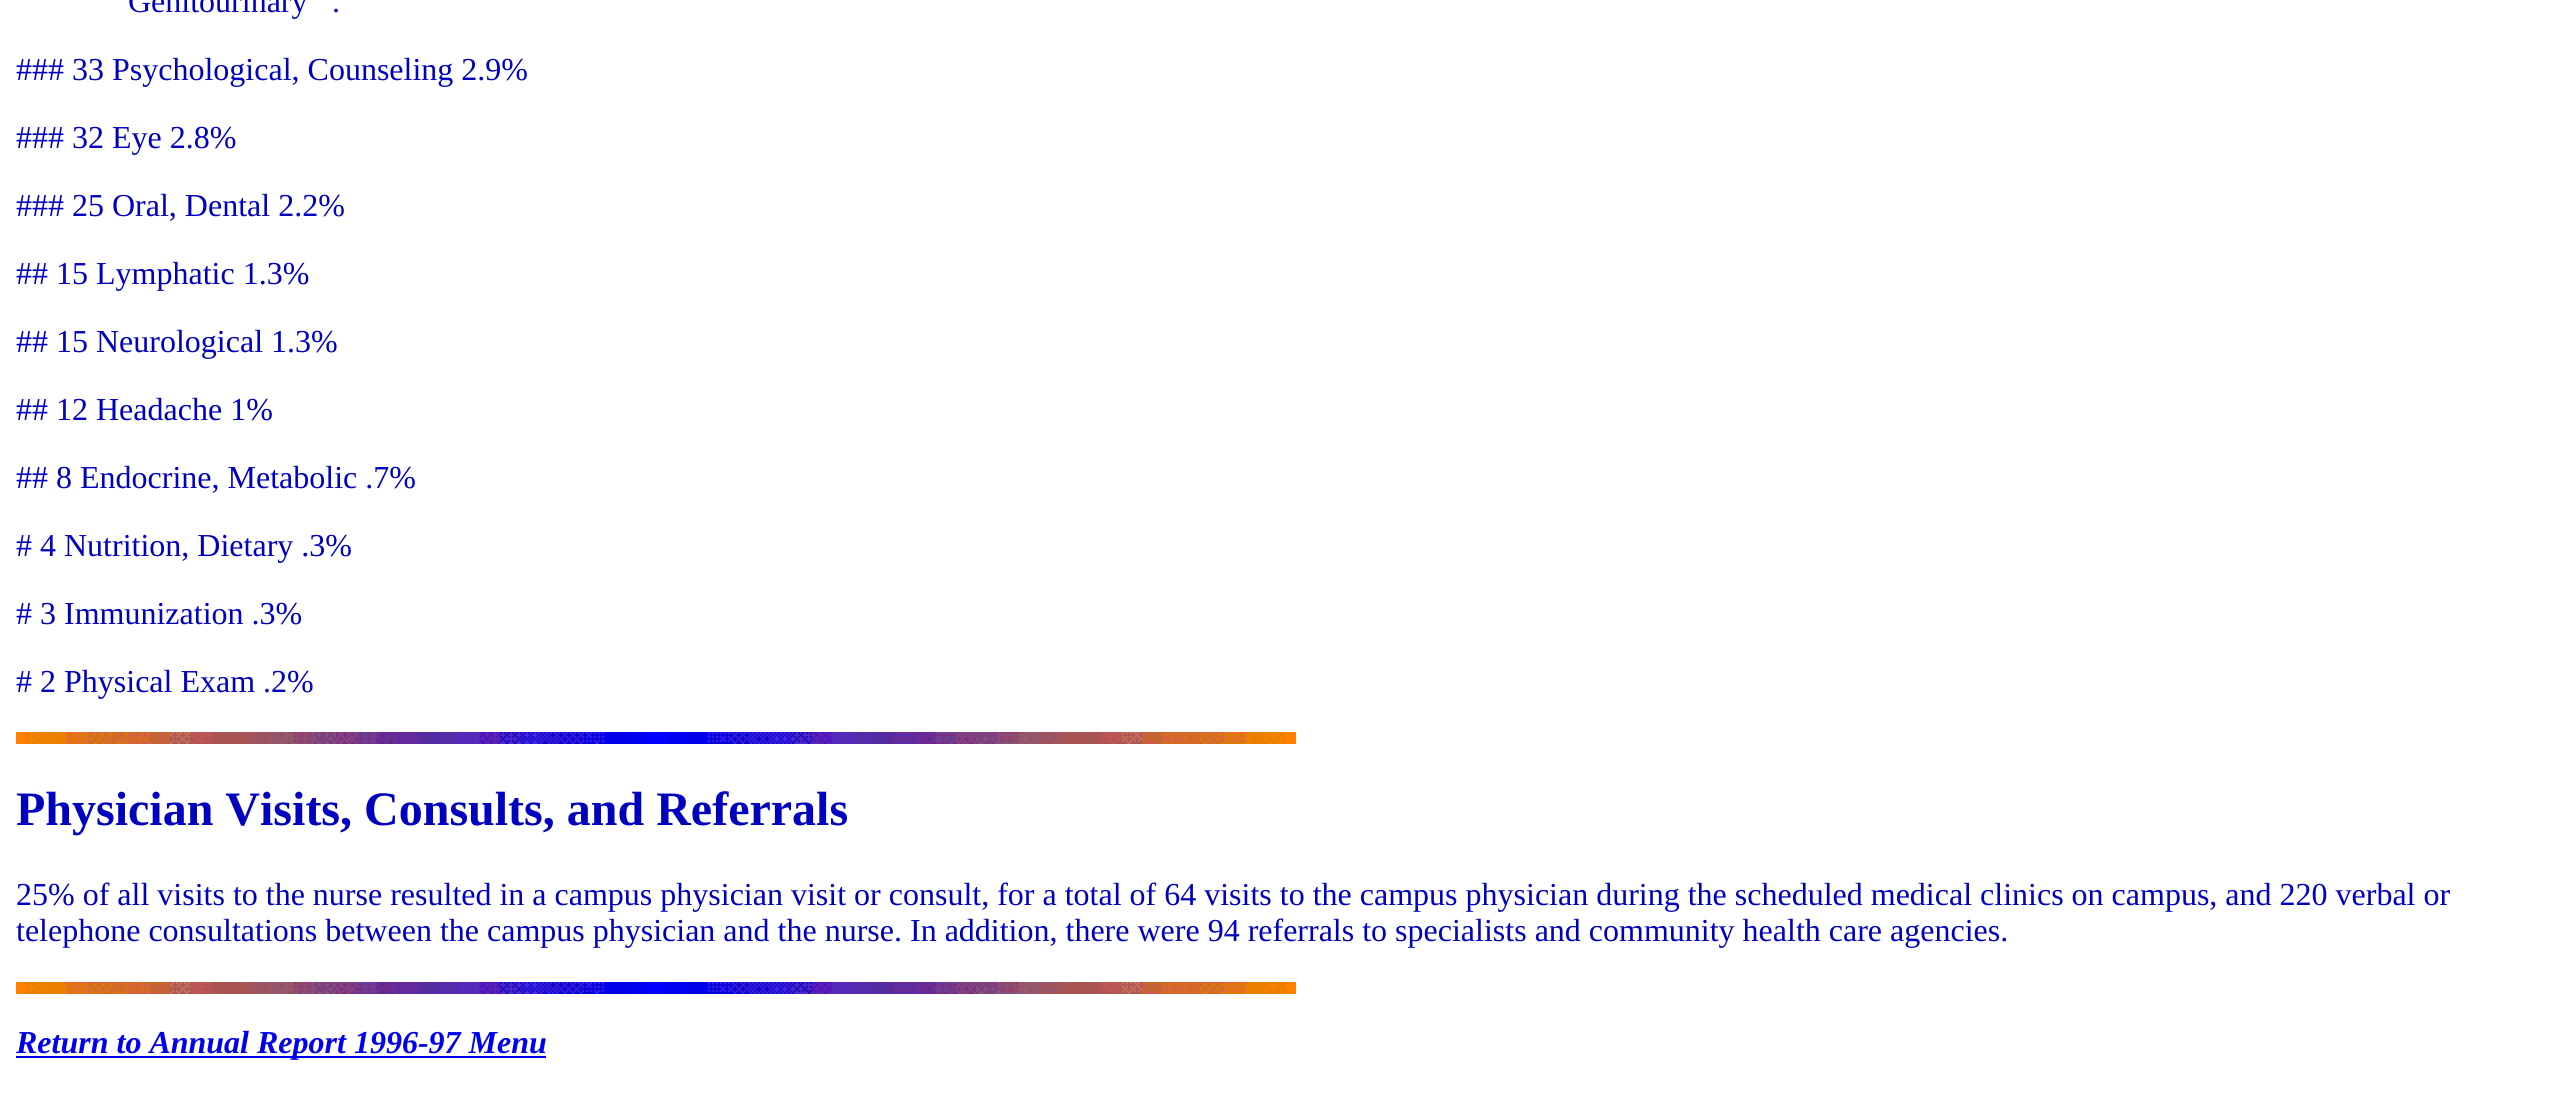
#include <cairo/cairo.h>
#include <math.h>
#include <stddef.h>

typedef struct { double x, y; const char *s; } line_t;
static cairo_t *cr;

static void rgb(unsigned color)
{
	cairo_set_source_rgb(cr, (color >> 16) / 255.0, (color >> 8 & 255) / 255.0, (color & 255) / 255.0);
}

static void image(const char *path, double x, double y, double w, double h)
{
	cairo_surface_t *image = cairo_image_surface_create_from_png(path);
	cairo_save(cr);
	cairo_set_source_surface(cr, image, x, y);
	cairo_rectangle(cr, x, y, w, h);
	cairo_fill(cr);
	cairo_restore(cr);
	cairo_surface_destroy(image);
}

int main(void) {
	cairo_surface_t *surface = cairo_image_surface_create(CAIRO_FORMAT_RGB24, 2562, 1093);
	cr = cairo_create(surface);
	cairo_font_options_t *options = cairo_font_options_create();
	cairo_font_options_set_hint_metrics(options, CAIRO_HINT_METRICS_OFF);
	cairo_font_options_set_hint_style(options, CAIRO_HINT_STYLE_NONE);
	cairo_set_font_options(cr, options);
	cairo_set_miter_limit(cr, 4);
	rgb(0xffffff);
	cairo_paint(cr);
	image("img/1.png", 16, 732, 1280, 12);
	image("img/1.png", 16, 982, 1280, 12);
	rgb(0x0000ee);
	cairo_rectangle(cr, 16, 1056, 530, 2);
	cairo_fill(cr);
	cairo_select_font_face(cr, "Liberation Serif", CAIRO_FONT_SLANT_NORMAL, CAIRO_FONT_WEIGHT_NORMAL);
	cairo_set_font_size(cr, 32);
	rgb(0x0000bf);
	{
		static const line_t items[] = {
			{128, 12, "Genitourinary"},
			{332, 12, "."},
			{16, 80, "### 33 Psychological, Counseling 2.9%"},
			{16, 148, "### 32 Eye 2.8%"},
			{16, 216, "### 25 Oral, Dental 2.2%"},
			{16, 284, "## 15 Lymphatic 1.3%"},
			{16, 352, "## 15 Neurological 1.3%"},
			{16, 420, "## 12 Headache 1%"},
			{16, 488, "## 8 Endocrine, Metabolic .7%"},
			{16, 556, "# 4 Nutrition, Dietary .3%"},
			{16, 624, "# 3 Immunization .3%"},
			{16, 692, "# 2 Physical Exam .2%"},
		};
		for (size_t i = 0; i < sizeof items / sizeof *items; i++) {
			cairo_move_to(cr, items[i].x, items[i].y);
			cairo_show_text(cr, items[i].s);
		}
	}
	cairo_select_font_face(cr, "Liberation Serif", CAIRO_FONT_SLANT_NORMAL, CAIRO_FONT_WEIGHT_BOLD);
	cairo_set_font_size(cr, 48);
	cairo_move_to(cr, 16, 825);
	cairo_show_text(cr, "Physician Visits, Consults, and Referrals");
	cairo_select_font_face(cr, "Liberation Serif", CAIRO_FONT_SLANT_NORMAL, CAIRO_FONT_WEIGHT_NORMAL);
	cairo_set_font_size(cr, 32);
	cairo_move_to(cr, 16, 905);
	cairo_show_text(cr, "25% of all visits to the nurse resulted in a campus physician visit or consult, for a total of 64 visits to the campus physician during the scheduled medical clinics on campus, and 220 verbal or");
	cairo_move_to(cr, 16, 941);
	cairo_show_text(cr, "telephone consultations between the campus physician and the nurse. In addition, there were 94 referrals to specialists and community health care agencies.");
	cairo_select_font_face(cr, "Liberation Serif", CAIRO_FONT_SLANT_ITALIC, CAIRO_FONT_WEIGHT_BOLD);
	rgb(0x0000ee);
	cairo_move_to(cr, 16, 1053);
	cairo_show_text(cr, "Return to Annual Report 1996-97 Menu");
	cairo_surface_write_to_png(surface, "page.png");
	cairo_font_options_destroy(options);
	cairo_destroy(cr);
	cairo_surface_destroy(surface);
	return 0;
}
